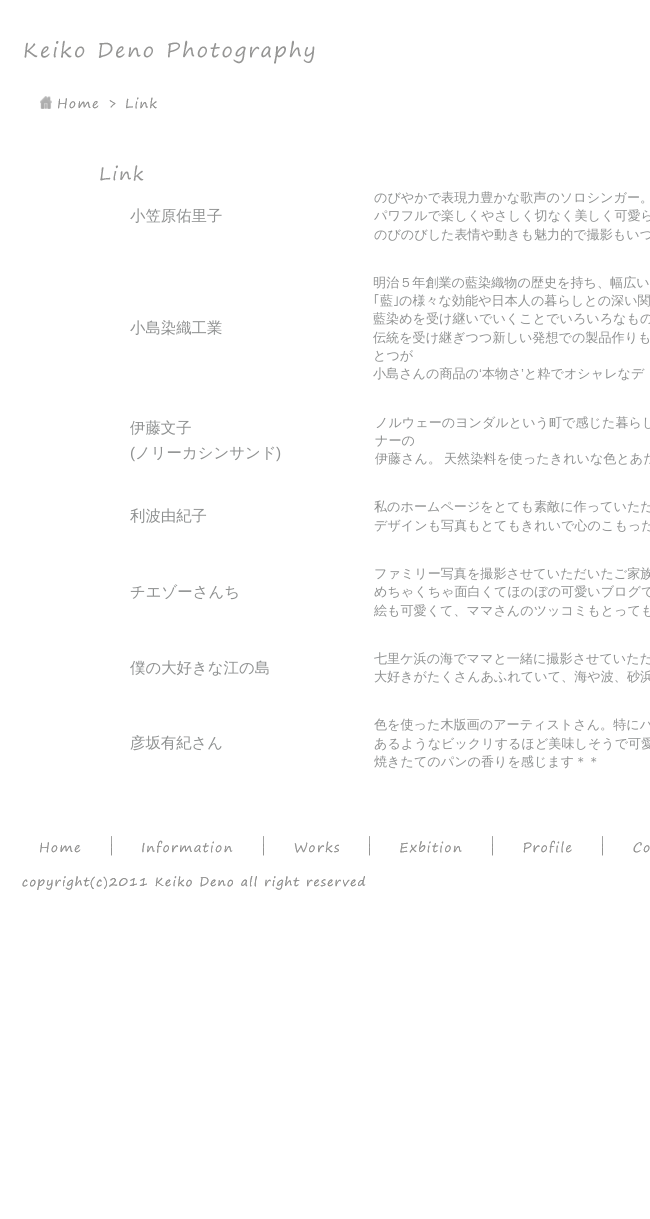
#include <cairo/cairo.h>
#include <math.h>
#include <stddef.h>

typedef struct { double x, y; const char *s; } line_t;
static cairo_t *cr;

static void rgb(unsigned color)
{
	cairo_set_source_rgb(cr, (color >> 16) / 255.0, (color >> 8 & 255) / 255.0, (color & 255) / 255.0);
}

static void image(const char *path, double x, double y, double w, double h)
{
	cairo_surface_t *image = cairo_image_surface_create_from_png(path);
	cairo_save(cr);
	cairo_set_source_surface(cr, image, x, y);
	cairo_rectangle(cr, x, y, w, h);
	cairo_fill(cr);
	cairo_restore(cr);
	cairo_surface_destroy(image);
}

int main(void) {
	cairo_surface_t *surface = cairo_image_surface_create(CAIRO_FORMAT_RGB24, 650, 1219);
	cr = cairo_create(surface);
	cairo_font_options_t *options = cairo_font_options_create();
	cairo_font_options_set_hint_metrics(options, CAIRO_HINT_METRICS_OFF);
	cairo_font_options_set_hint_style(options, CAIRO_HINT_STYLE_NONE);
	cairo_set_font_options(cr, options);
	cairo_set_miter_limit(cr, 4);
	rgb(0xffffff);
	cairo_paint(cr);
	image("img/1.png", 24, 40, 291, 24);
	image("img/2.png", 40, 96, 59, 13);
	image("img/3.png", 109, 100, 7, 8);
	image("img/4.png", 126, 97, 31, 12);
	image("img/5.png", 100, 165, 44, 16);
	image("img/6.png", 40, 842, 41, 11);
	image("img/7.png", 111, 836, 1, 20);
	image("img/8.png", 142, 840, 91, 13);
	image("img/7.png", 263, 836, 1, 20);
	image("img/9.png", 294, 841, 45, 12);
	image("img/7.png", 369, 836, 1, 20);
	image("img/10.png", 400, 841, 62, 12);
	image("img/7.png", 492, 836, 1, 20);
	image("img/11.png", 523, 840, 49, 13);
	image("img/7.png", 602, 836, 1, 20);
	image("img/12.png", 633, 842, 17, 11);
	image("img/13.png", 22, 876, 344, 14);
	cairo_select_font_face(cr, "WenQuanYi Zen Hei Medium", CAIRO_FONT_SLANT_NORMAL, CAIRO_FONT_WEIGHT_NORMAL);
	cairo_set_font_size(cr, 15.4);
	rgb(0x8e9090);
	cairo_move_to(cr, 130, 221);
	cairo_show_text(cr, "小笠原佑里子");
	cairo_set_font_size(cr, 13.1);
	{
		static const line_t items[] = {
			{374, 202, "のびやかで表現力豊かな歌声のソロシンガー。"},
			{374, 220, "パワフルで楽しくやさしく切なく美しく可愛ら"},
			{374, 239, "のびのびした表情や動きも魅力的で撮影もいつ"},
		};
		for (size_t i = 0; i < sizeof items / sizeof *items; i++) {
			cairo_move_to(cr, items[i].x, items[i].y);
			cairo_show_text(cr, items[i].s);
		}
	}
	cairo_set_font_size(cr, 15.4);
	cairo_move_to(cr, 130, 333);
	cairo_show_text(cr, "小島染織工業");
	cairo_set_font_size(cr, 13.1);
	cairo_move_to(cr, 373, 287);
	cairo_show_text(cr, "明治５年創業の藍染織物の歴史を持ち、幅広い");
	cairo_select_font_face(cr, "IPAGothic", CAIRO_FONT_SLANT_NORMAL, CAIRO_FONT_WEIGHT_NORMAL);
	cairo_move_to(cr, 373, 305);
	cairo_show_text(cr, "｢");
	cairo_select_font_face(cr, "WenQuanYi Zen Hei Medium", CAIRO_FONT_SLANT_NORMAL, CAIRO_FONT_WEIGHT_NORMAL);
	cairo_move_to(cr, 380, 305);
	cairo_show_text(cr, "藍");
	cairo_select_font_face(cr, "IPAGothic", CAIRO_FONT_SLANT_NORMAL, CAIRO_FONT_WEIGHT_NORMAL);
	cairo_move_to(cr, 393, 305);
	cairo_show_text(cr, "｣");
	cairo_select_font_face(cr, "WenQuanYi Zen Hei Medium", CAIRO_FONT_SLANT_NORMAL, CAIRO_FONT_WEIGHT_NORMAL);
	{
		static const line_t items[] = {
			{399, 305, "の様々な効能や日本人の暮らしとの深い関"},
			{373, 323, "藍染めを受け継いでいくことでいろいろなもの"},
			{373, 342, "伝統を受け継ぎつつ新しい発想での製品作りも"},
			{373, 360, "とつが"},
			{373, 378, "小島さんの商品の"},
		};
		for (size_t i = 0; i < sizeof items / sizeof *items; i++) {
			cairo_move_to(cr, items[i].x, items[i].y);
			cairo_show_text(cr, items[i].s);
		}
	}
	cairo_select_font_face(cr, "Liberation Sans", CAIRO_FONT_SLANT_NORMAL, CAIRO_FONT_WEIGHT_NORMAL);
	cairo_move_to(cr, 479, 378);
	cairo_show_text(cr, "‘");
	cairo_select_font_face(cr, "WenQuanYi Zen Hei Medium", CAIRO_FONT_SLANT_NORMAL, CAIRO_FONT_WEIGHT_NORMAL);
	cairo_move_to(cr, 482, 378);
	cairo_show_text(cr, "本物さ");
	cairo_select_font_face(cr, "Liberation Sans", CAIRO_FONT_SLANT_NORMAL, CAIRO_FONT_WEIGHT_NORMAL);
	cairo_move_to(cr, 521, 378);
	cairo_show_text(cr, "’");
	cairo_select_font_face(cr, "WenQuanYi Zen Hei Medium", CAIRO_FONT_SLANT_NORMAL, CAIRO_FONT_WEIGHT_NORMAL);
	cairo_move_to(cr, 524, 378);
	cairo_show_text(cr, "と粋でオシャレなデ");
	cairo_set_font_size(cr, 15.4);
	cairo_move_to(cr, 130, 433);
	cairo_show_text(cr, "伊藤文子");
	cairo_select_font_face(cr, "Liberation Sans", CAIRO_FONT_SLANT_NORMAL, CAIRO_FONT_WEIGHT_NORMAL);
	cairo_move_to(cr, 130, 458);
	cairo_show_text(cr, "(");
	cairo_select_font_face(cr, "WenQuanYi Zen Hei Medium", CAIRO_FONT_SLANT_NORMAL, CAIRO_FONT_WEIGHT_NORMAL);
	cairo_move_to(cr, 135, 458);
	cairo_show_text(cr, "ノリーカシンサンド");
	cairo_select_font_face(cr, "Liberation Sans", CAIRO_FONT_SLANT_NORMAL, CAIRO_FONT_WEIGHT_NORMAL);
	cairo_move_to(cr, 276, 458);
	cairo_show_text(cr, ")");
	cairo_select_font_face(cr, "WenQuanYi Zen Hei Medium", CAIRO_FONT_SLANT_NORMAL, CAIRO_FONT_WEIGHT_NORMAL);
	cairo_set_font_size(cr, 13.1);
	{
		static const line_t items[] = {
			{375, 427, "ノルウェーのヨンダルという町で感じた暮らし"},
			{375, 445, "ナーの"},
			{375, 463, "伊藤さん。"},
			{444, 463, "天然染料を使ったきれいな色とあた"},
		};
		for (size_t i = 0; i < sizeof items / sizeof *items; i++) {
			cairo_move_to(cr, items[i].x, items[i].y);
			cairo_show_text(cr, items[i].s);
		}
	}
	cairo_set_font_size(cr, 15.4);
	cairo_move_to(cr, 130, 521);
	cairo_show_text(cr, "利波由紀子");
	cairo_set_font_size(cr, 13.1);
	cairo_move_to(cr, 374, 511);
	cairo_show_text(cr, "私のホームページをとても素敵に作っていただ");
	cairo_move_to(cr, 374, 530);
	cairo_show_text(cr, "デザインも写真もとてもきれいで心のこもった");
	cairo_set_font_size(cr, 15.4);
	cairo_move_to(cr, 130, 597);
	cairo_show_text(cr, "チエゾーさんち");
	cairo_set_font_size(cr, 13.1);
	{
		static const line_t items[] = {
			{374, 578, "ファミリー写真を撮影させていただいたご家族"},
			{374, 596, "めちゃくちゃ面白くてほのぼの可愛いブログで"},
			{374, 615, "絵も可愛くて、ママさんのツッコミもとっても"},
		};
		for (size_t i = 0; i < sizeof items / sizeof *items; i++) {
			cairo_move_to(cr, items[i].x, items[i].y);
			cairo_show_text(cr, items[i].s);
		}
	}
	cairo_set_font_size(cr, 15.4);
	cairo_move_to(cr, 130, 673);
	cairo_show_text(cr, "僕の大好きな江の島");
	cairo_set_font_size(cr, 13.1);
	cairo_move_to(cr, 374, 663);
	cairo_show_text(cr, "七里ケ浜の海でママと一緒に撮影させていただ");
	cairo_move_to(cr, 374, 681);
	cairo_show_text(cr, "大好きがたくさんあふれていて、海や波、砂浜");
	cairo_set_font_size(cr, 15.4);
	cairo_move_to(cr, 130, 748);
	cairo_show_text(cr, "彦坂有紀さん");
	cairo_set_font_size(cr, 13.1);
	{
		static const line_t items[] = {
			{374, 729, "色を使った木版画のアーティストさん。特にパ"},
			{374, 748, "あるようなビックリするほど美味しそうで可愛"},
			{374, 766, "焼きたてのパンの香りを感じます＊＊"},
		};
		for (size_t i = 0; i < sizeof items / sizeof *items; i++) {
			cairo_move_to(cr, items[i].x, items[i].y);
			cairo_show_text(cr, items[i].s);
		}
	}
	cairo_surface_write_to_png(surface, "page.png");
	cairo_font_options_destroy(options);
	cairo_destroy(cr);
	cairo_surface_destroy(surface);
	return 0;
}
